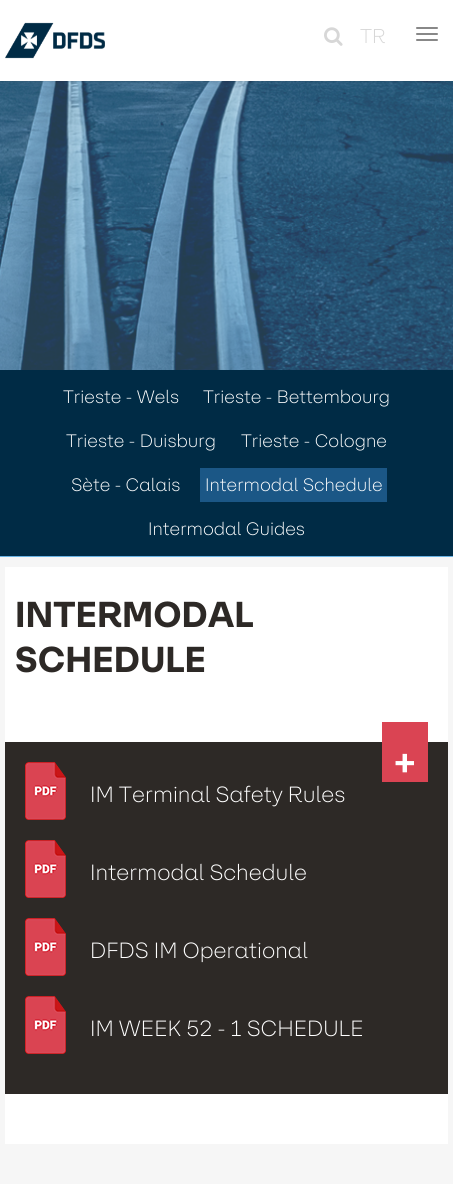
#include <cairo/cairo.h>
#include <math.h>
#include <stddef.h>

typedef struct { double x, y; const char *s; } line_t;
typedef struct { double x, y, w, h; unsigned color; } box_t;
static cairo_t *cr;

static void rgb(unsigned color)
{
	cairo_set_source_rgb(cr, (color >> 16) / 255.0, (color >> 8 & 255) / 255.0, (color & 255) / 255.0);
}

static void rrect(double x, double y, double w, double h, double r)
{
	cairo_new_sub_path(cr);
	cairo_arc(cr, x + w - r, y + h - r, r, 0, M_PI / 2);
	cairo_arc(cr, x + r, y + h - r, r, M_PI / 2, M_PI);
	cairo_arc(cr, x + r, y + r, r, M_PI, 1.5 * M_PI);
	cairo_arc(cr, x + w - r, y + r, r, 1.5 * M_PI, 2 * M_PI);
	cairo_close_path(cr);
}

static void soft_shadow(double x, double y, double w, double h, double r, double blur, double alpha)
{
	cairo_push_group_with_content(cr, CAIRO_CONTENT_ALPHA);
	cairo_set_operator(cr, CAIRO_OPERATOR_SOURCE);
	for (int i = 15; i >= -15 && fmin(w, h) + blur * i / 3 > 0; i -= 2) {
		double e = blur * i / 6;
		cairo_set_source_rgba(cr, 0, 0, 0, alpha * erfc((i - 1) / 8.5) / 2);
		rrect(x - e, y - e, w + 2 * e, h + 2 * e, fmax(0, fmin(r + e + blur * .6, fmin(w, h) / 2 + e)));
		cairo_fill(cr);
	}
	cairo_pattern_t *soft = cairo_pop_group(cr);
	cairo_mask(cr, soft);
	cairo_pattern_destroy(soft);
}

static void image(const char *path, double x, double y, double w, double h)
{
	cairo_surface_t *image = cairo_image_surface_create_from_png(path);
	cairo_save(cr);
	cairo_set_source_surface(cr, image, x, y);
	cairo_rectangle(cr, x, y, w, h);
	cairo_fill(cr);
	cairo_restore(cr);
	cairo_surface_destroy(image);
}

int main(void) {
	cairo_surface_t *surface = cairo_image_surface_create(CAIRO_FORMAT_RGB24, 453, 1202);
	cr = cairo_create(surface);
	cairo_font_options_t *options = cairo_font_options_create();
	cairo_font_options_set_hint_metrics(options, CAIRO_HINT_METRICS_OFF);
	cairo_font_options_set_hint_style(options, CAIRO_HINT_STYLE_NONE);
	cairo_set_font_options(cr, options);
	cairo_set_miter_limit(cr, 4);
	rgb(0xffffff);
	cairo_paint(cr);
	image("img/3.png", 0, 81, 453, 289);
	rgb(0x000101);
	soft_shadow(0, 0, 453, 81, 0, 1.5, 0.2);
	rgb(0xffffff);
	cairo_rectangle(cr, 0, 0, 453, 81);
	cairo_fill(cr);
	image("img/1.png", 5, 22, 100, 37);
	rgb(0x888888);
	rrect(416, 27, 22, 2, 1);
	cairo_fill(cr);
	rrect(416, 33, 22, 2, 1);
	cairo_fill(cr);
	rrect(416, 39, 22, 2, 1);
	cairo_fill(cr);
	image("img/2.png", 324, 27, 19, 19);
	{
		static const box_t items[] = {
			{0, 557, 453, 627, 0xf6f6f6},
			{0, 370, 453, 186, 0x002b45},
			{0, 556, 453, 1, 0x68b2e3},
			{200, 468, 187, 34, 0x1b5786},
			{5, 567, 443, 577, 0xffffff},
			{5, 742, 443, 352, 0x2d2926},
			{382, 722, 46, 60, 0xda4453},
		};
		for (size_t i = 0; i < sizeof items / sizeof *items; i++) {
			rgb(items[i].color);
			cairo_rectangle(cr, items[i].x, items[i].y, items[i].w, items[i].h);
			cairo_fill(cr);
		}
	}
	image("img/4.png", 25, 762, 41, 58);
	image("img/4.png", 25, 840, 41, 58);
	image("img/4.png", 25, 918, 41, 58);
	image("img/4.png", 25, 996, 41, 58);
	cairo_select_font_face(cr, "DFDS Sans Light", CAIRO_FONT_SLANT_NORMAL, CAIRO_FONT_WEIGHT_NORMAL);
	cairo_set_font_size(cr, 20);
	rgb(0xd7d7d7);
	cairo_move_to(cr, 360, 43);
	cairo_show_text(cr, "TR");
	cairo_set_font_size(cr, 18);
	rgb(0xffffff);
	{
		static const line_t items[] = {
			{63, 403, "Trieste - Wels"},
			{203, 403, "Trieste - Bettembourg"},
			{66, 447, "Trieste - Duisburg"},
			{241, 447, "Trieste - Cologne"},
			{71, 491, "Sète - Calais"},
			{205, 491, "Intermodal Schedule"},
			{148, 535, "Intermodal Guides"},
		};
		for (size_t i = 0; i < sizeof items / sizeof *items; i++) {
			cairo_move_to(cr, items[i].x, items[i].y);
			cairo_show_text(cr, items[i].s);
		}
	}
	cairo_select_font_face(cr, "DFDS Sans", CAIRO_FONT_SLANT_NORMAL, CAIRO_FONT_WEIGHT_BOLD);
	cairo_set_font_size(cr, 36);
	rgb(0x2d2926);
	cairo_move_to(cr, 15, 627);
	cairo_show_text(cr, "INTERMODAL");
	cairo_move_to(cr, 15, 672);
	cairo_show_text(cr, "SCHEDULE");
	cairo_set_font_size(cr, 34);
	rgb(0xffffff);
	cairo_move_to(cr, 394, 774);
	cairo_show_text(cr, "+");
	cairo_select_font_face(cr, "DFDS Sans Light", CAIRO_FONT_SLANT_NORMAL, CAIRO_FONT_WEIGHT_NORMAL);
	cairo_set_font_size(cr, 22);
	{
		static const line_t items[] = {
			{90, 802, "IM Terminal Safety Rules"},
			{90, 880, "Intermodal Schedule"},
			{90, 958, "DFDS IM Operational"},
			{90, 1036, "IM WEEK 52 - 1 SCHEDULE"},
		};
		for (size_t i = 0; i < sizeof items / sizeof *items; i++) {
			cairo_move_to(cr, items[i].x, items[i].y);
			cairo_show_text(cr, items[i].s);
		}
	}
	cairo_surface_write_to_png(surface, "page.png");
	cairo_font_options_destroy(options);
	cairo_destroy(cr);
	cairo_surface_destroy(surface);
	return 0;
}
